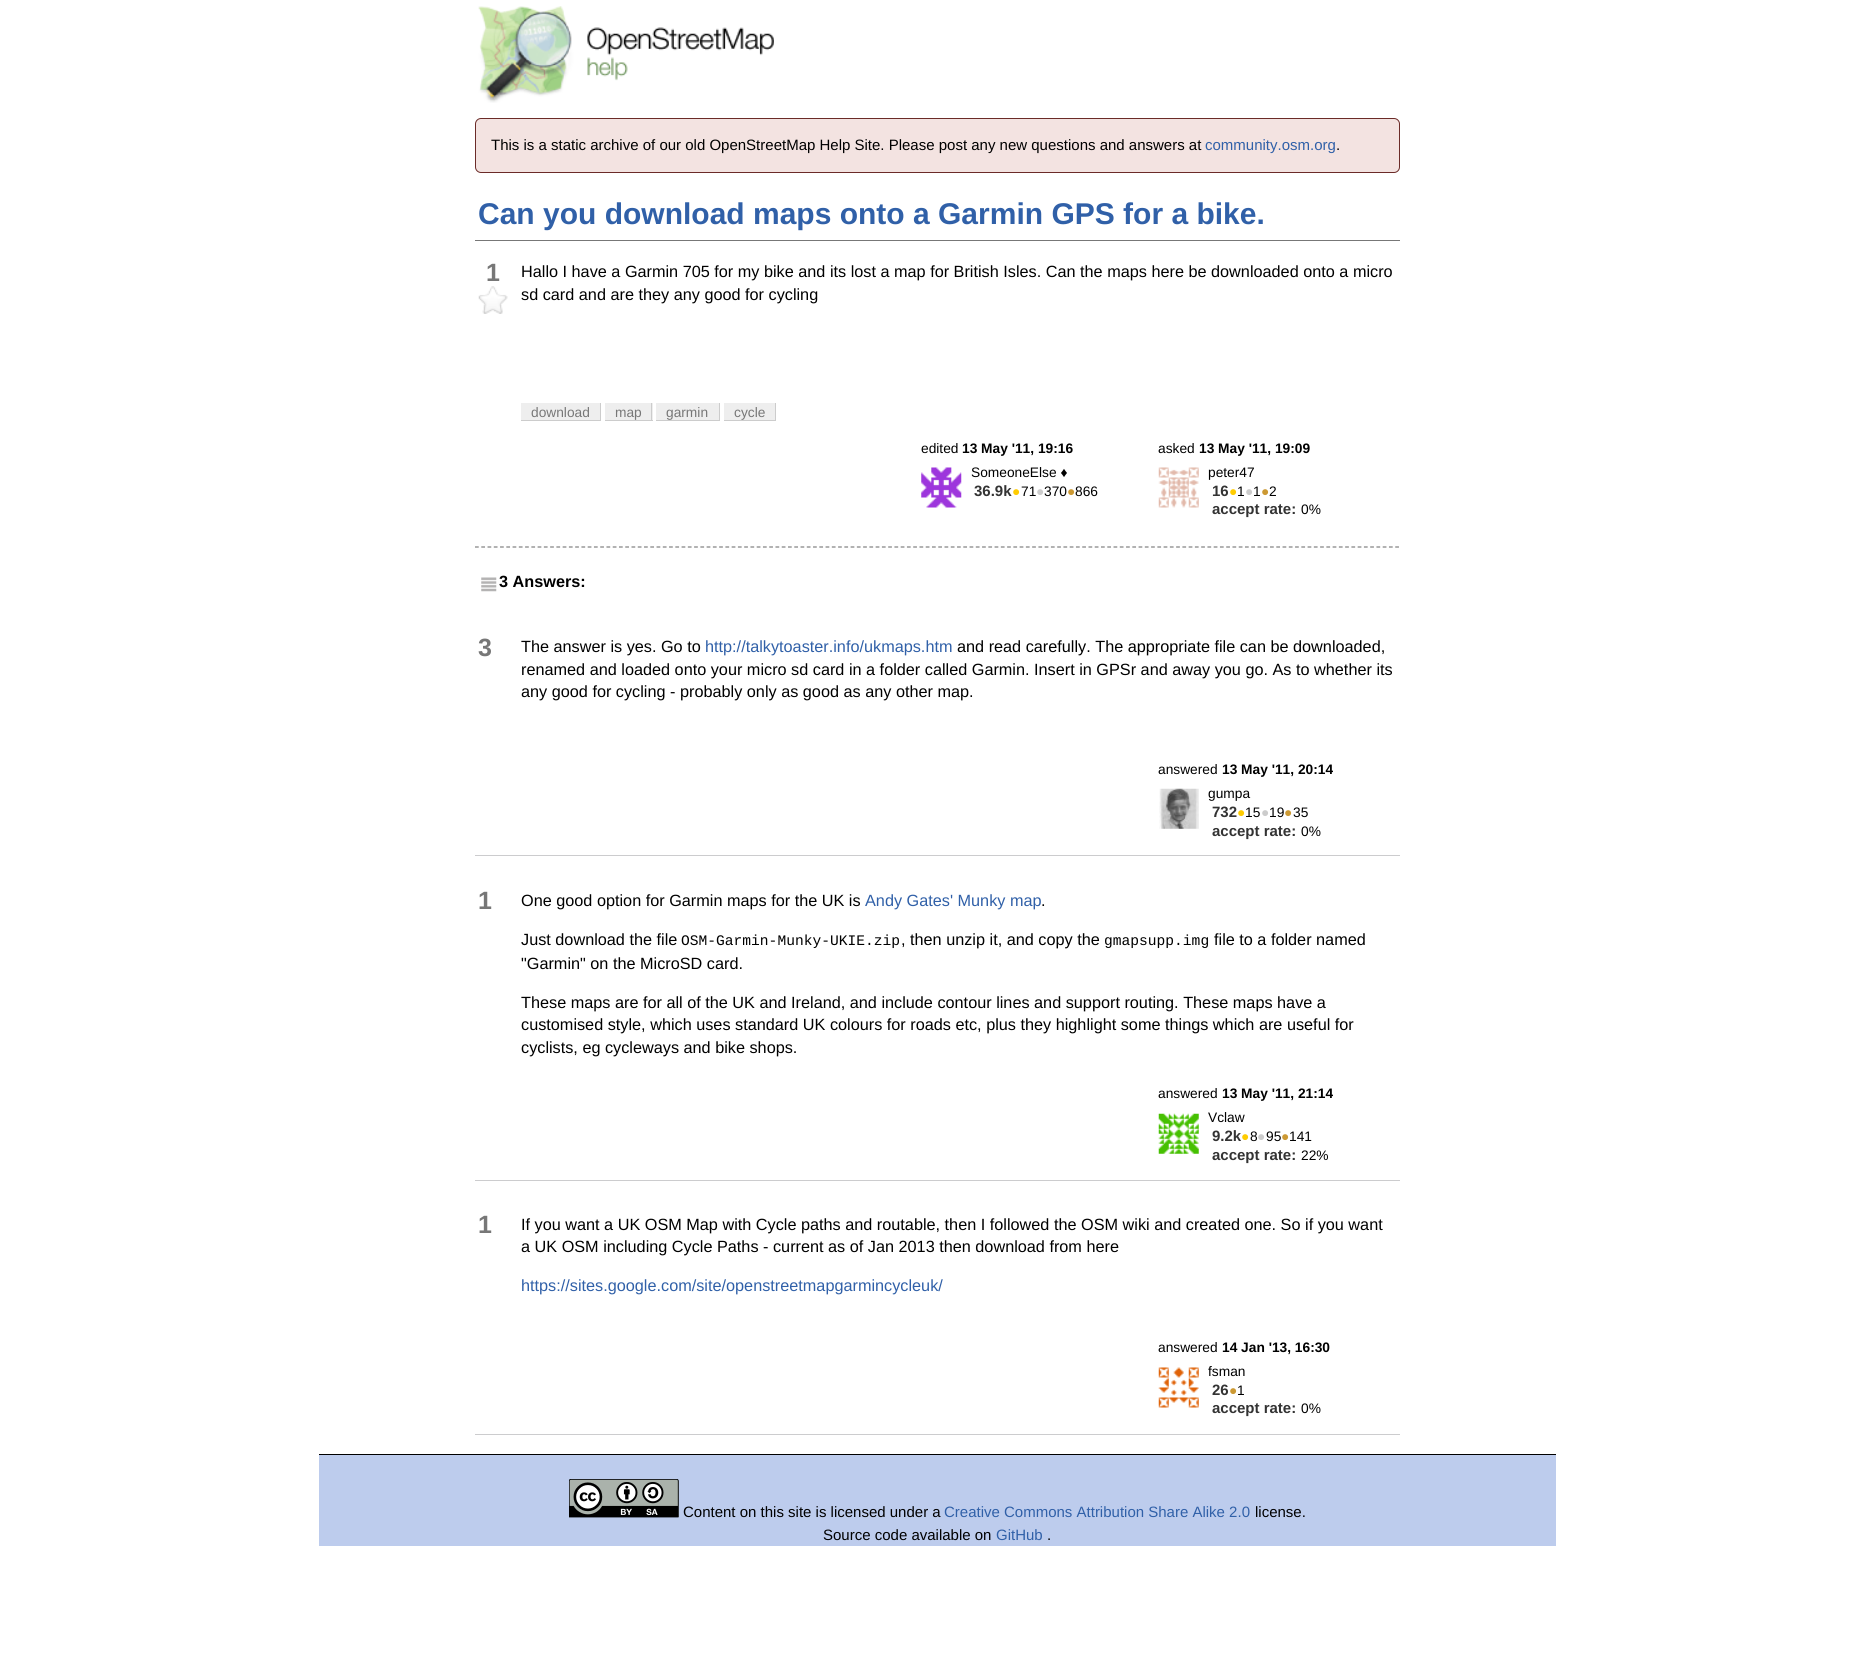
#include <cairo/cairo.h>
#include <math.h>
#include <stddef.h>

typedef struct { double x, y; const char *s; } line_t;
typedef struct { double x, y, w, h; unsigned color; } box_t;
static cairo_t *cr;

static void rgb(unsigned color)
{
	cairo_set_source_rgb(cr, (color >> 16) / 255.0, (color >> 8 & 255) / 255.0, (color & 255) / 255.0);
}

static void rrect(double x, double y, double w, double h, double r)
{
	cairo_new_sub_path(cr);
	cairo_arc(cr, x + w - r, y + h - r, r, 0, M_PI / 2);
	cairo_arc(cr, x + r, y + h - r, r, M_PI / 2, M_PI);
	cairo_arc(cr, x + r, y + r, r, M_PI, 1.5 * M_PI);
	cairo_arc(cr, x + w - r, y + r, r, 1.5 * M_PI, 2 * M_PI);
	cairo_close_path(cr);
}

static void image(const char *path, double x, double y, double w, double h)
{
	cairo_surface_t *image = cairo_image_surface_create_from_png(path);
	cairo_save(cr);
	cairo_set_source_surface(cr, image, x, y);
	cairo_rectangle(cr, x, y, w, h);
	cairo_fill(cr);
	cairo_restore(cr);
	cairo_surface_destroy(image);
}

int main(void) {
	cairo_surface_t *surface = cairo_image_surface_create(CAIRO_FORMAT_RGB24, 1873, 1676);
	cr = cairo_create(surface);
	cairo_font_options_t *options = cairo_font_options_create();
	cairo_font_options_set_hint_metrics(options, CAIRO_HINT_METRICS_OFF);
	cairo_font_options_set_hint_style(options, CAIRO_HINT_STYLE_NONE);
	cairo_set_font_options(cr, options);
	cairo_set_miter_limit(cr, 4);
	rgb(0xffffff);
	cairo_paint(cr);
	image("img/1.png", 478, 6, 296, 97);
	rgb(0xf3e3e1);
	rrect(475.5, 118.5, 924, 54, 5.5);
	cairo_fill_preserve(cr);
	rgb(0x6b2b28);
	cairo_set_line_width(cr, 1);
	cairo_stroke(cr);
	rgb(0x777777);
	cairo_rectangle(cr, 475, 240, 925, 1);
	cairo_fill(cr);
	image("img/2.png", 478, 286, 30, 28);
	{
		static const box_t items[] = {
			{521, 403, 79, 17, 0xeeeeee},
			{600, 403, 1, 18, 0xcccccc},
			{521, 420, 80, 1, 0xcccccc},
			{605, 403, 48, 17, 0xeeeeee},
			{651, 403, 1, 18, 0xcccccc},
			{605, 420, 48, 1, 0xcccccc},
			{656, 403, 63, 17, 0xeeeeee},
			{719, 403, 1, 18, 0xcccccc},
			{656, 420, 64, 1, 0xcccccc},
			{724, 403, 51, 17, 0xeeeeee},
			{775, 403, 1, 18, 0xcccccc},
			{724, 420, 52, 1, 0xcccccc},
		};
		for (size_t i = 0; i < sizeof items / sizeof *items; i++) {
			rgb(items[i].color);
			cairo_rectangle(cr, items[i].x, items[i].y, items[i].w, items[i].h);
			cairo_fill(cr);
		}
	}
	image("img/3.png", 921, 467, 41, 41);
	image("img/4.png", 1158, 467, 41, 41);
	cairo_new_path(cr);
	cairo_move_to(cr, 475, 547);
	cairo_line_to(cr, 1400, 547);
	rgb(0x808080);
	cairo_set_line_width(cr, 1.2);
	cairo_set_dash(cr, (double[]){3.75, 2.51}, 2, 0);
	cairo_stroke(cr);
	image("img/5.png", 481, 577, 16, 15);
	rgb(0xccccce);
	cairo_rectangle(cr, 475, 855, 925, 1);
	cairo_fill(cr);
	image("img/6.png", 1159, 788, 40, 41);
	cairo_rectangle(cr, 475, 1180, 925, 1);
	cairo_fill(cr);
	image("img/7.png", 1158, 1113, 41, 41);
	cairo_rectangle(cr, 475, 1434, 925, 1);
	cairo_fill(cr);
	image("img/8.png", 1158, 1367, 41, 41);
	rgb(0xbdcced);
	cairo_rectangle(cr, 319, 1455, 1237, 91);
	cairo_fill(cr);
	rgb(0x000000);
	cairo_rectangle(cr, 319, 1454, 1237, 1);
	cairo_fill(cr);
	image("img/9.png", 569, 1479, 110, 39);
	cairo_select_font_face(cr, "Liberation Sans", CAIRO_FONT_SLANT_NORMAL, CAIRO_FONT_WEIGHT_NORMAL);
	cairo_set_font_size(cr, 15);
	cairo_move_to(cr, 491, 150);
	cairo_show_text(cr, "This is a static archive of our old OpenStreetMap Help Site. Please post any new questions and answers at");
	rgb(0x3060a8);
	cairo_move_to(cr, 1205, 150);
	cairo_show_text(cr, "community.osm.org");
	rgb(0x000000);
	cairo_move_to(cr, 1336, 150);
	cairo_show_text(cr, ".");
	cairo_select_font_face(cr, "Liberation Sans", CAIRO_FONT_SLANT_NORMAL, CAIRO_FONT_WEIGHT_BOLD);
	cairo_set_font_size(cr, 30);
	rgb(0x3060a8);
	cairo_move_to(cr, 478, 224);
	cairo_show_text(cr, "Can you download maps onto a Garmin GPS for a bike.");
	cairo_set_font_size(cr, 25);
	rgb(0x777777);
	cairo_move_to(cr, 486, 281);
	cairo_show_text(cr, "1");
	cairo_select_font_face(cr, "Liberation Sans", CAIRO_FONT_SLANT_NORMAL, CAIRO_FONT_WEIGHT_NORMAL);
	cairo_set_font_size(cr, 16.25);
	rgb(0x000000);
	cairo_move_to(cr, 521, 277);
	cairo_show_text(cr, "Hallo I have a Garmin 705 for my bike and its lost a map for British Isles. Can the maps here be downloaded onto a micro");
	cairo_move_to(cr, 521, 300);
	cairo_show_text(cr, "sd card and are they any good for cycling");
	cairo_set_font_size(cr, 13.75);
	rgb(0x777777);
	{
		static const line_t items[] = {
			{531, 417, "download"},
			{615, 417, "map"},
			{666, 417, "garmin"},
			{734, 417, "cycle"},
		};
		for (size_t i = 0; i < sizeof items / sizeof *items; i++) {
			cairo_move_to(cr, items[i].x, items[i].y);
			cairo_show_text(cr, items[i].s);
		}
	}
	rgb(0x000000);
	cairo_move_to(cr, 921, 453);
	cairo_show_text(cr, "edited");
	cairo_select_font_face(cr, "Liberation Sans", CAIRO_FONT_SLANT_NORMAL, CAIRO_FONT_WEIGHT_BOLD);
	cairo_move_to(cr, 962, 453);
	cairo_show_text(cr, "13 May '11, 19:16");
	cairo_select_font_face(cr, "Liberation Sans", CAIRO_FONT_SLANT_NORMAL, CAIRO_FONT_WEIGHT_NORMAL);
	cairo_move_to(cr, 971, 477);
	cairo_show_text(cr, "SomeoneElse ♦");
	cairo_select_font_face(cr, "Liberation Sans", CAIRO_FONT_SLANT_NORMAL, CAIRO_FONT_WEIGHT_BOLD);
	cairo_set_font_size(cr, 15);
	rgb(0x333333);
	cairo_move_to(cr, 974, 496);
	cairo_show_text(cr, "36.9k");
	cairo_select_font_face(cr, "Liberation Sans", CAIRO_FONT_SLANT_NORMAL, CAIRO_FONT_WEIGHT_NORMAL);
	cairo_set_font_size(cr, 13.75);
	rgb(0xffcc00);
	cairo_move_to(cr, 1012, 496);
	cairo_show_text(cr, "●");
	rgb(0x000000);
	cairo_move_to(cr, 1021, 496);
	cairo_show_text(cr, "71");
	rgb(0xcccccc);
	cairo_move_to(cr, 1036, 496);
	cairo_show_text(cr, "●");
	rgb(0x000000);
	cairo_move_to(cr, 1044, 496);
	cairo_show_text(cr, "370");
	rgb(0xcc9933);
	cairo_move_to(cr, 1067, 496);
	cairo_show_text(cr, "●");
	rgb(0x000000);
	cairo_move_to(cr, 1075, 496);
	cairo_show_text(cr, "866");
	cairo_move_to(cr, 1158, 453);
	cairo_show_text(cr, "asked");
	cairo_select_font_face(cr, "Liberation Sans", CAIRO_FONT_SLANT_NORMAL, CAIRO_FONT_WEIGHT_BOLD);
	cairo_move_to(cr, 1199, 453);
	cairo_show_text(cr, "13 May '11, 19:09");
	cairo_select_font_face(cr, "Liberation Sans", CAIRO_FONT_SLANT_NORMAL, CAIRO_FONT_WEIGHT_NORMAL);
	cairo_move_to(cr, 1208, 477);
	cairo_show_text(cr, "peter47");
	cairo_select_font_face(cr, "Liberation Sans", CAIRO_FONT_SLANT_NORMAL, CAIRO_FONT_WEIGHT_BOLD);
	cairo_set_font_size(cr, 15);
	rgb(0x333333);
	cairo_move_to(cr, 1212, 496);
	cairo_show_text(cr, "16");
	cairo_select_font_face(cr, "Liberation Sans", CAIRO_FONT_SLANT_NORMAL, CAIRO_FONT_WEIGHT_NORMAL);
	cairo_set_font_size(cr, 13.75);
	rgb(0xffcc00);
	cairo_move_to(cr, 1229, 496);
	cairo_show_text(cr, "●");
	rgb(0x000000);
	cairo_move_to(cr, 1237, 496);
	cairo_show_text(cr, "1");
	rgb(0xcccccc);
	cairo_move_to(cr, 1245, 496);
	cairo_show_text(cr, "●");
	rgb(0x000000);
	cairo_move_to(cr, 1253, 496);
	cairo_show_text(cr, "1");
	rgb(0xcc9933);
	cairo_move_to(cr, 1261, 496);
	cairo_show_text(cr, "●");
	rgb(0x000000);
	cairo_move_to(cr, 1269, 496);
	cairo_show_text(cr, "2");
	cairo_select_font_face(cr, "Liberation Sans", CAIRO_FONT_SLANT_NORMAL, CAIRO_FONT_WEIGHT_BOLD);
	cairo_set_font_size(cr, 15);
	rgb(0x333333);
	cairo_move_to(cr, 1212, 514);
	cairo_show_text(cr, "accept rate:");
	cairo_select_font_face(cr, "Liberation Sans", CAIRO_FONT_SLANT_NORMAL, CAIRO_FONT_WEIGHT_NORMAL);
	cairo_set_font_size(cr, 13.75);
	rgb(0x000000);
	cairo_move_to(cr, 1301, 514);
	cairo_show_text(cr, "0%");
	cairo_select_font_face(cr, "Liberation Sans", CAIRO_FONT_SLANT_NORMAL, CAIRO_FONT_WEIGHT_BOLD);
	cairo_set_font_size(cr, 16.25);
	cairo_move_to(cr, 499, 587);
	cairo_show_text(cr, "3 Answers:");
	cairo_set_font_size(cr, 25);
	rgb(0x777777);
	cairo_move_to(cr, 478, 656);
	cairo_show_text(cr, "3");
	cairo_select_font_face(cr, "Liberation Sans", CAIRO_FONT_SLANT_NORMAL, CAIRO_FONT_WEIGHT_NORMAL);
	cairo_set_font_size(cr, 16.25);
	rgb(0x000000);
	cairo_move_to(cr, 521, 652);
	cairo_show_text(cr, "The answer is yes. Go to");
	rgb(0x3060a8);
	cairo_move_to(cr, 705, 652);
	cairo_show_text(cr, "http://talkytoaster.info/ukmaps.htm");
	rgb(0x000000);
	{
		static const line_t items[] = {
			{957, 652, "and read carefully. The appropriate file can be downloaded,"},
			{521, 675, "renamed and loaded onto your micro sd card in a folder called Garmin. Insert in GPSr and away you go. As to whether its"},
			{521, 697, "any good for cycling - probably only as good as any other map."},
		};
		for (size_t i = 0; i < sizeof items / sizeof *items; i++) {
			cairo_move_to(cr, items[i].x, items[i].y);
			cairo_show_text(cr, items[i].s);
		}
	}
	cairo_set_font_size(cr, 13.75);
	cairo_move_to(cr, 1158, 774);
	cairo_show_text(cr, "answered");
	cairo_select_font_face(cr, "Liberation Sans", CAIRO_FONT_SLANT_NORMAL, CAIRO_FONT_WEIGHT_BOLD);
	cairo_move_to(cr, 1222, 774);
	cairo_show_text(cr, "13 May '11, 20:14");
	cairo_select_font_face(cr, "Liberation Sans", CAIRO_FONT_SLANT_NORMAL, CAIRO_FONT_WEIGHT_NORMAL);
	cairo_move_to(cr, 1208, 798);
	cairo_show_text(cr, "gumpa");
	cairo_select_font_face(cr, "Liberation Sans", CAIRO_FONT_SLANT_NORMAL, CAIRO_FONT_WEIGHT_BOLD);
	cairo_set_font_size(cr, 15);
	rgb(0x333333);
	cairo_move_to(cr, 1212, 817);
	cairo_show_text(cr, "732");
	cairo_select_font_face(cr, "Liberation Sans", CAIRO_FONT_SLANT_NORMAL, CAIRO_FONT_WEIGHT_NORMAL);
	cairo_set_font_size(cr, 13.75);
	rgb(0xffcc00);
	cairo_move_to(cr, 1237, 817);
	cairo_show_text(cr, "●");
	rgb(0x000000);
	cairo_move_to(cr, 1245, 817);
	cairo_show_text(cr, "15");
	rgb(0xcccccc);
	cairo_move_to(cr, 1261, 817);
	cairo_show_text(cr, "●");
	rgb(0x000000);
	cairo_move_to(cr, 1269, 817);
	cairo_show_text(cr, "19");
	rgb(0xcc9933);
	cairo_move_to(cr, 1284, 817);
	cairo_show_text(cr, "●");
	rgb(0x000000);
	cairo_move_to(cr, 1293, 817);
	cairo_show_text(cr, "35");
	cairo_select_font_face(cr, "Liberation Sans", CAIRO_FONT_SLANT_NORMAL, CAIRO_FONT_WEIGHT_BOLD);
	cairo_set_font_size(cr, 15);
	rgb(0x333333);
	cairo_move_to(cr, 1212, 836);
	cairo_show_text(cr, "accept rate:");
	cairo_select_font_face(cr, "Liberation Sans", CAIRO_FONT_SLANT_NORMAL, CAIRO_FONT_WEIGHT_NORMAL);
	cairo_set_font_size(cr, 13.75);
	rgb(0x000000);
	cairo_move_to(cr, 1301, 836);
	cairo_show_text(cr, "0%");
	cairo_select_font_face(cr, "Liberation Sans", CAIRO_FONT_SLANT_NORMAL, CAIRO_FONT_WEIGHT_BOLD);
	cairo_set_font_size(cr, 25);
	rgb(0x777777);
	cairo_move_to(cr, 478, 909);
	cairo_show_text(cr, "1");
	cairo_select_font_face(cr, "Liberation Sans", CAIRO_FONT_SLANT_NORMAL, CAIRO_FONT_WEIGHT_NORMAL);
	cairo_set_font_size(cr, 16.25);
	rgb(0x000000);
	cairo_move_to(cr, 521, 906);
	cairo_show_text(cr, "One good option for Garmin maps for the UK is");
	rgb(0x3060a8);
	cairo_move_to(cr, 865, 906);
	cairo_show_text(cr, "Andy Gates' Munky map");
	rgb(0x000000);
	cairo_move_to(cr, 1041, 906);
	cairo_show_text(cr, ".");
	cairo_move_to(cr, 521, 945);
	cairo_show_text(cr, "Just download the file");
	cairo_select_font_face(cr, "Liberation Mono", CAIRO_FONT_SLANT_NORMAL, CAIRO_FONT_WEIGHT_NORMAL);
	cairo_set_font_size(cr, 14.6);
	cairo_move_to(cr, 681, 945);
	cairo_show_text(cr, "OSM-Garmin-Munky-UKIE.zip");
	cairo_select_font_face(cr, "Liberation Sans", CAIRO_FONT_SLANT_NORMAL, CAIRO_FONT_WEIGHT_NORMAL);
	cairo_set_font_size(cr, 16.25);
	cairo_move_to(cr, 901, 945);
	cairo_show_text(cr, ", then unzip it, and copy the");
	cairo_select_font_face(cr, "Liberation Mono", CAIRO_FONT_SLANT_NORMAL, CAIRO_FONT_WEIGHT_NORMAL);
	cairo_set_font_size(cr, 14.6);
	cairo_move_to(cr, 1104, 945);
	cairo_show_text(cr, "gmapsupp.img");
	cairo_select_font_face(cr, "Liberation Sans", CAIRO_FONT_SLANT_NORMAL, CAIRO_FONT_WEIGHT_NORMAL);
	cairo_set_font_size(cr, 16.25);
	{
		static const line_t items[] = {
			{1214, 945, "file to a folder named"},
			{521, 969, "\"Garmin\" on the MicroSD card."},
			{521, 1008, "These maps are for all of the UK and Ireland, and include contour lines and support routing. These maps have a"},
			{521, 1030, "customised style, which uses standard UK colours for roads etc, plus they highlight some things which are useful for"},
			{521, 1053, "cyclists, eg cycleways and bike shops."},
		};
		for (size_t i = 0; i < sizeof items / sizeof *items; i++) {
			cairo_move_to(cr, items[i].x, items[i].y);
			cairo_show_text(cr, items[i].s);
		}
	}
	cairo_set_font_size(cr, 13.75);
	cairo_move_to(cr, 1158, 1098);
	cairo_show_text(cr, "answered");
	cairo_select_font_face(cr, "Liberation Sans", CAIRO_FONT_SLANT_NORMAL, CAIRO_FONT_WEIGHT_BOLD);
	cairo_move_to(cr, 1222, 1098);
	cairo_show_text(cr, "13 May '11, 21:14");
	cairo_select_font_face(cr, "Liberation Sans", CAIRO_FONT_SLANT_NORMAL, CAIRO_FONT_WEIGHT_NORMAL);
	cairo_move_to(cr, 1208, 1122);
	cairo_show_text(cr, "Vclaw");
	cairo_select_font_face(cr, "Liberation Sans", CAIRO_FONT_SLANT_NORMAL, CAIRO_FONT_WEIGHT_BOLD);
	cairo_set_font_size(cr, 15);
	rgb(0x333333);
	cairo_move_to(cr, 1212, 1141);
	cairo_show_text(cr, "9.2k");
	cairo_select_font_face(cr, "Liberation Sans", CAIRO_FONT_SLANT_NORMAL, CAIRO_FONT_WEIGHT_NORMAL);
	cairo_set_font_size(cr, 13.75);
	rgb(0xffcc00);
	cairo_move_to(cr, 1241, 1141);
	cairo_show_text(cr, "●");
	rgb(0x000000);
	cairo_move_to(cr, 1250, 1141);
	cairo_show_text(cr, "8");
	rgb(0xcccccc);
	cairo_move_to(cr, 1257, 1141);
	cairo_show_text(cr, "●");
	rgb(0x000000);
	cairo_move_to(cr, 1266, 1141);
	cairo_show_text(cr, "95");
	rgb(0xcc9933);
	cairo_move_to(cr, 1281, 1141);
	cairo_show_text(cr, "●");
	rgb(0x000000);
	cairo_move_to(cr, 1289, 1141);
	cairo_show_text(cr, "141");
	cairo_select_font_face(cr, "Liberation Sans", CAIRO_FONT_SLANT_NORMAL, CAIRO_FONT_WEIGHT_BOLD);
	cairo_set_font_size(cr, 15);
	rgb(0x333333);
	cairo_move_to(cr, 1212, 1160);
	cairo_show_text(cr, "accept rate:");
	cairo_select_font_face(cr, "Liberation Sans", CAIRO_FONT_SLANT_NORMAL, CAIRO_FONT_WEIGHT_NORMAL);
	cairo_set_font_size(cr, 13.75);
	rgb(0x000000);
	cairo_move_to(cr, 1301, 1160);
	cairo_show_text(cr, "22%");
	cairo_select_font_face(cr, "Liberation Sans", CAIRO_FONT_SLANT_NORMAL, CAIRO_FONT_WEIGHT_BOLD);
	cairo_set_font_size(cr, 25);
	rgb(0x777777);
	cairo_move_to(cr, 478, 1233);
	cairo_show_text(cr, "1");
	cairo_select_font_face(cr, "Liberation Sans", CAIRO_FONT_SLANT_NORMAL, CAIRO_FONT_WEIGHT_NORMAL);
	cairo_set_font_size(cr, 16.25);
	rgb(0x000000);
	cairo_move_to(cr, 521, 1230);
	cairo_show_text(cr, "If you want a UK OSM Map with Cycle paths and routable, then I followed the OSM wiki and created one. So if you want");
	cairo_move_to(cr, 521, 1252);
	cairo_show_text(cr, "a UK OSM including Cycle Paths - current as of Jan 2013 then download from here");
	rgb(0x3060a8);
	cairo_move_to(cr, 521, 1291);
	cairo_show_text(cr, "https://sites.google.com/site/openstreetmapgarmincycleuk/");
	cairo_set_font_size(cr, 13.75);
	rgb(0x000000);
	cairo_move_to(cr, 1158, 1352);
	cairo_show_text(cr, "answered");
	cairo_select_font_face(cr, "Liberation Sans", CAIRO_FONT_SLANT_NORMAL, CAIRO_FONT_WEIGHT_BOLD);
	cairo_move_to(cr, 1222, 1352);
	cairo_show_text(cr, "14 Jan '13, 16:30");
	cairo_select_font_face(cr, "Liberation Sans", CAIRO_FONT_SLANT_NORMAL, CAIRO_FONT_WEIGHT_NORMAL);
	cairo_move_to(cr, 1208, 1376);
	cairo_show_text(cr, "fsman");
	cairo_select_font_face(cr, "Liberation Sans", CAIRO_FONT_SLANT_NORMAL, CAIRO_FONT_WEIGHT_BOLD);
	cairo_set_font_size(cr, 15);
	rgb(0x333333);
	cairo_move_to(cr, 1212, 1395);
	cairo_show_text(cr, "26");
	cairo_select_font_face(cr, "Liberation Sans", CAIRO_FONT_SLANT_NORMAL, CAIRO_FONT_WEIGHT_NORMAL);
	cairo_set_font_size(cr, 13.75);
	rgb(0xcc9933);
	cairo_move_to(cr, 1229, 1395);
	cairo_show_text(cr, "●");
	rgb(0x000000);
	cairo_move_to(cr, 1237, 1395);
	cairo_show_text(cr, "1");
	cairo_select_font_face(cr, "Liberation Sans", CAIRO_FONT_SLANT_NORMAL, CAIRO_FONT_WEIGHT_BOLD);
	cairo_set_font_size(cr, 15);
	rgb(0x333333);
	cairo_move_to(cr, 1212, 1413);
	cairo_show_text(cr, "accept rate:");
	cairo_select_font_face(cr, "Liberation Sans", CAIRO_FONT_SLANT_NORMAL, CAIRO_FONT_WEIGHT_NORMAL);
	cairo_set_font_size(cr, 13.75);
	rgb(0x000000);
	cairo_move_to(cr, 1301, 1413);
	cairo_show_text(cr, "0%");
	cairo_set_font_size(cr, 15);
	cairo_move_to(cr, 683, 1517);
	cairo_show_text(cr, "Content on this site is licensed under a");
	rgb(0x3060a8);
	cairo_move_to(cr, 944, 1517);
	cairo_show_text(cr, "Creative Commons Attribution Share Alike 2.0");
	rgb(0x000000);
	cairo_move_to(cr, 1255, 1517);
	cairo_show_text(cr, "license.");
	cairo_move_to(cr, 823, 1540);
	cairo_show_text(cr, "Source code available on");
	rgb(0x3060a8);
	cairo_move_to(cr, 996, 1540);
	cairo_show_text(cr, "GitHub");
	rgb(0x000000);
	cairo_move_to(cr, 1047, 1540);
	cairo_show_text(cr, ".");
	cairo_surface_write_to_png(surface, "page.png");
	cairo_font_options_destroy(options);
	cairo_destroy(cr);
	cairo_surface_destroy(surface);
	return 0;
}
